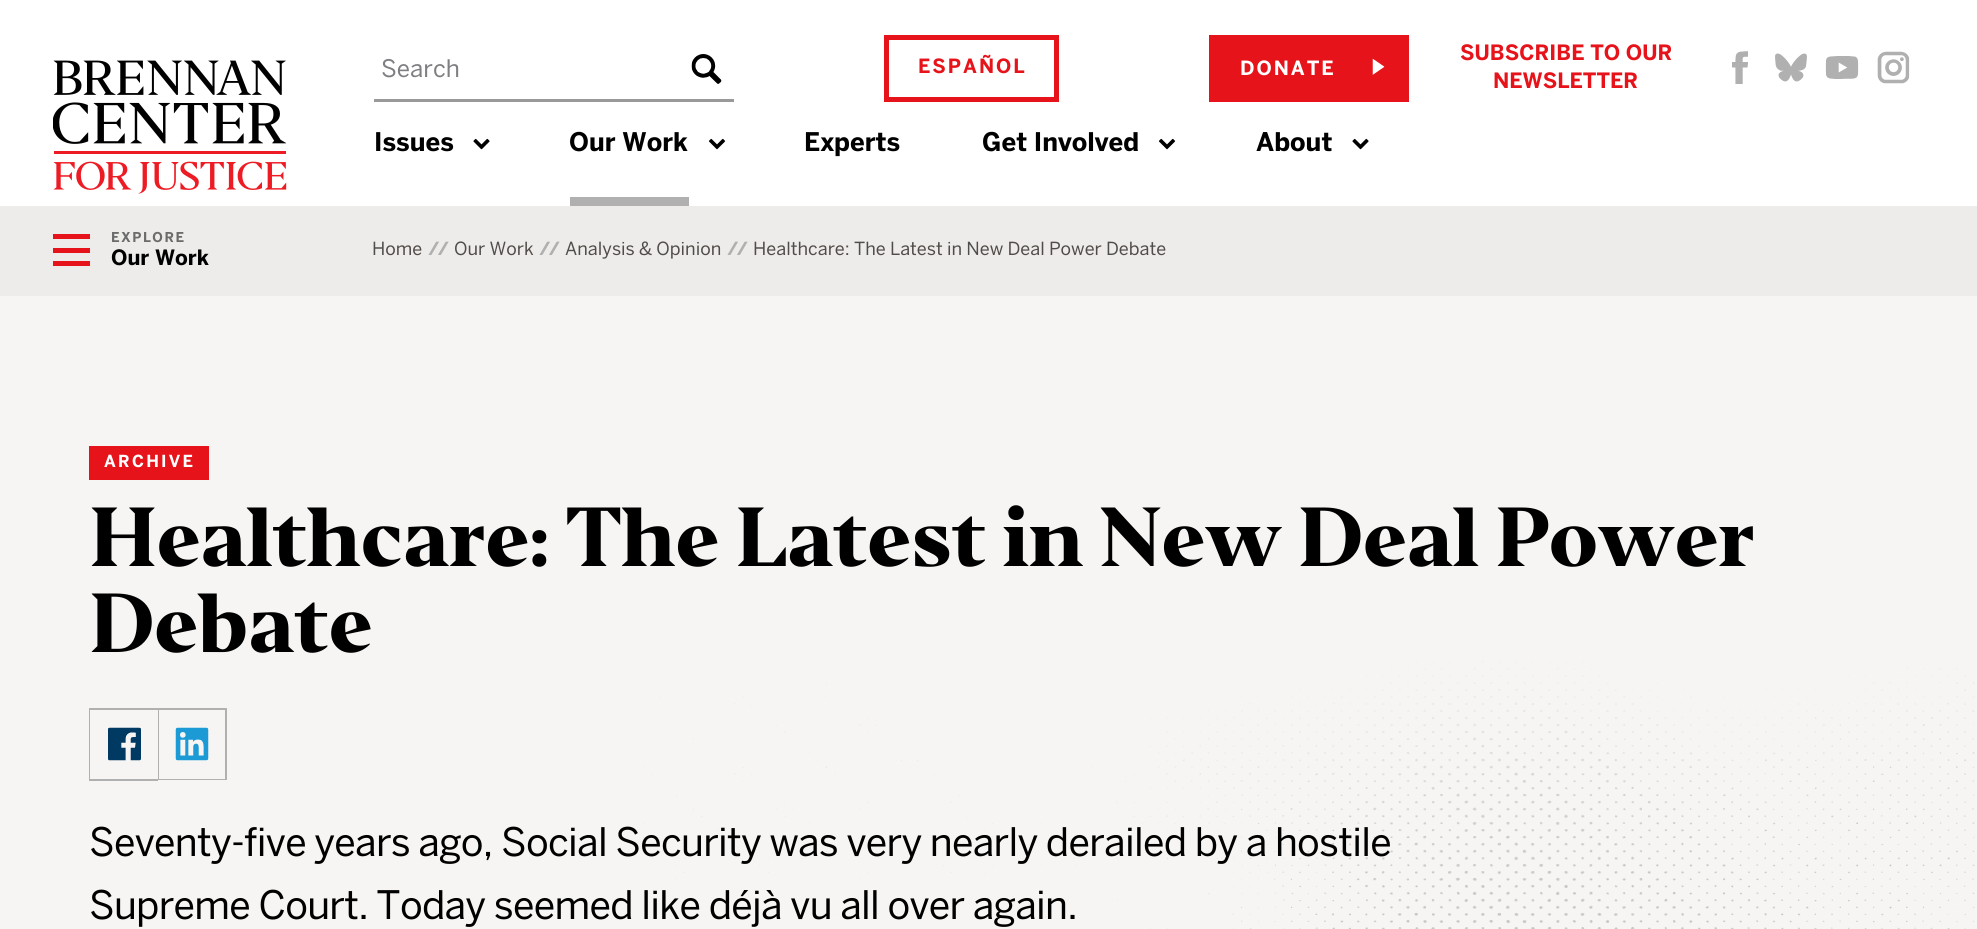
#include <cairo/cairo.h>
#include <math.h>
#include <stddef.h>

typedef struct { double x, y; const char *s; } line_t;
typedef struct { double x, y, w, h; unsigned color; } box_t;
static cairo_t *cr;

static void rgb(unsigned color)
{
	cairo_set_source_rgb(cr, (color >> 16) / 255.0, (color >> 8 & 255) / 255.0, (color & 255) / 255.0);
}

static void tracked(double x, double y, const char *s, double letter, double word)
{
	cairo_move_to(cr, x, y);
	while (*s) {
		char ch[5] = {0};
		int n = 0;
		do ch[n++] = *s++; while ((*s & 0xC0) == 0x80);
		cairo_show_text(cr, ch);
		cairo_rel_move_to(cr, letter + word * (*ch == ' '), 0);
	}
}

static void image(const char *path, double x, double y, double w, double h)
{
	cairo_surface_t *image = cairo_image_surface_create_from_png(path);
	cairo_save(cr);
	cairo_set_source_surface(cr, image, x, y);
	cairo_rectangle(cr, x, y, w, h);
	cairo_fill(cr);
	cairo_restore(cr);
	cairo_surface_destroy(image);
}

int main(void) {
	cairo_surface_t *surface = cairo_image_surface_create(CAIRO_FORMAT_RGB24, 1977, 929);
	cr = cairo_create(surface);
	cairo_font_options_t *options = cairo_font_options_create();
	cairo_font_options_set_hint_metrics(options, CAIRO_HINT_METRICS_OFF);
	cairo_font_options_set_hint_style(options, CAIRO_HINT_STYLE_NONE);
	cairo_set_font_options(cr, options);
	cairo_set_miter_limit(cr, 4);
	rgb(0xffffff);
	cairo_paint(cr);
	image("img/1.png", 53, 60, 234, 134);
	rgb(0x999999);
	cairo_rectangle(cr, 374, 99, 360, 3);
	cairo_fill(cr);
	image("img/2.png", 691, 54, 31, 30);
	cairo_rectangle(cr, 886.5, 37.5, 170, 62);
	rgb(0xe7131a);
	cairo_set_line_width(cr, 5);
	cairo_stroke(cr);
	cairo_rectangle(cr, 1209, 35, 200, 67);
	cairo_fill(cr);
	image("img/3.png", 1372, 58, 13, 17);
	image("img/4.png", 1732, 51, 16, 33);
	image("img/5.png", 1775, 53, 32, 29);
	image("img/6.png", 1825, 56, 34, 23);
	image("img/7.png", 1877, 51, 33, 33);
	image("img/8.png", 473, 138, 17, 12);
	rgb(0xb0b0b0);
	cairo_rectangle(cr, 570, 197, 119, 9);
	cairo_fill(cr);
	image("img/9.png", 708, 138, 18, 12);
	image("img/9.png", 1158, 138, 18, 12);
	image("img/8.png", 1352, 138, 17, 12);
	{
		static const box_t items[] = {
			{0, 206, 1977, 90, 0xeeecea},
			{53, 234, 37, 5, 0xe7131a},
			{53, 248, 37, 5, 0xe7131a},
			{53, 261, 37, 5, 0xe7131a},
			{0, 296, 1977, 633, 0xf7f5f3},
			{89, 446, 120, 34, 0xe7131a},
			{89, 708, 69, 2, 0xb0b0b0},
			{89, 779, 69, 2, 0xb0b0b0},
			{89, 708, 2, 72, 0xb0b0b0},
			{90, 710, 1, 69, 0xf7f5f3},
		};
		for (size_t i = 0; i < sizeof items / sizeof *items; i++) {
			rgb(items[i].color);
			cairo_rectangle(cr, items[i].x, items[i].y, items[i].w, items[i].h);
			cairo_fill(cr);
		}
	}
	image("img/10.png", 108, 727, 33, 34);
	cairo_rectangle(cr, 159, 709, 67, 70);
	rgb(0xb0b0b0);
	cairo_set_line_width(cr, 2);
	cairo_stroke(cr);
	rgb(0xf7f5f3);
	cairo_rectangle(cr, 159, 710, 66, 69);
	cairo_fill(cr);
	image("img/11.png", 175, 727, 34, 34);
	image("img/12.png", 643, 661, 1332, 268);
	cairo_select_font_face(cr, "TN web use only", CAIRO_FONT_SLANT_NORMAL, CAIRO_FONT_WEIGHT_NORMAL);
	cairo_set_font_size(cr, 24);
	rgb(0x807e83);
	cairo_move_to(cr, 381, 77);
	cairo_show_text(cr, "Search");
	cairo_select_font_face(cr, "TN web use only", CAIRO_FONT_SLANT_NORMAL, CAIRO_FONT_WEIGHT_BOLD);
	cairo_set_font_size(cr, 19.5);
	rgb(0xe7131a);
	tracked(918, 73, "ESPAÑOL", 2, 0);
	rgb(0xffffff);
	tracked(1240, 75, "DONATE", 2, 0);
	cairo_set_font_size(cr, 21);
	rgb(0xe7131a);
	cairo_move_to(cr, 1460, 60);
	cairo_show_text(cr, "SUBSCRIBE TO OUR");
	cairo_move_to(cr, 1493, 88);
	cairo_show_text(cr, "NEWSLETTER");
	cairo_set_font_size(cr, 25.5);
	rgb(0x000000);
	{
		static const line_t items[] = {
			{374, 151, "Issues"},
			{569, 151, "Our Work"},
			{804, 151, "Experts"},
			{982, 151, "Get Involved"},
			{1256, 151, "About"},
		};
		for (size_t i = 0; i < sizeof items / sizeof *items; i++) {
			cairo_move_to(cr, items[i].x, items[i].y);
			cairo_show_text(cr, items[i].s);
		}
	}
	cairo_set_font_size(cr, 13.5);
	rgb(0x6b6b6b);
	tracked(111, 242, "EXPLORE", 1.5, 0);
	cairo_set_font_size(cr, 21);
	rgb(0x000000);
	cairo_move_to(cr, 111, 265);
	cairo_show_text(cr, "Our Work");
	cairo_select_font_face(cr, "TN web use only", CAIRO_FONT_SLANT_NORMAL, CAIRO_FONT_WEIGHT_NORMAL);
	cairo_set_font_size(cr, 18);
	rgb(0x504c49);
	cairo_move_to(cr, 372, 255);
	cairo_show_text(cr, "Home");
	cairo_select_font_face(cr, "TN web use only", CAIRO_FONT_SLANT_NORMAL, CAIRO_FONT_WEIGHT_BOLD);
	rgb(0xb0b0b0);
	tracked(428, 255, "//", -2, 0);
	cairo_select_font_face(cr, "TN web use only", CAIRO_FONT_SLANT_NORMAL, CAIRO_FONT_WEIGHT_NORMAL);
	rgb(0x504c49);
	cairo_move_to(cr, 454, 255);
	cairo_show_text(cr, "Our Work");
	cairo_select_font_face(cr, "TN web use only", CAIRO_FONT_SLANT_NORMAL, CAIRO_FONT_WEIGHT_BOLD);
	rgb(0xb0b0b0);
	tracked(539, 255, "//", -2, 0);
	cairo_select_font_face(cr, "TN web use only", CAIRO_FONT_SLANT_NORMAL, CAIRO_FONT_WEIGHT_NORMAL);
	rgb(0x504c49);
	cairo_move_to(cr, 565, 255);
	cairo_show_text(cr, "Analysis & Opinion");
	cairo_select_font_face(cr, "TN web use only", CAIRO_FONT_SLANT_NORMAL, CAIRO_FONT_WEIGHT_BOLD);
	rgb(0xb0b0b0);
	tracked(727, 255, "//", -2, 0);
	cairo_select_font_face(cr, "TN web use only", CAIRO_FONT_SLANT_NORMAL, CAIRO_FONT_WEIGHT_NORMAL);
	rgb(0x504c49);
	cairo_move_to(cr, 753, 255);
	cairo_show_text(cr, "Healthcare: The Latest in New Deal Power Debate");
	cairo_select_font_face(cr, "TN web use only", CAIRO_FONT_SLANT_NORMAL, CAIRO_FONT_WEIGHT_BOLD);
	cairo_set_font_size(cr, 16.5);
	rgb(0xffffff);
	tracked(104, 467, "ARCHIVE", 2.25, 0);
	cairo_select_font_face(cr, "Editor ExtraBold", CAIRO_FONT_SLANT_NORMAL, CAIRO_FONT_WEIGHT_NORMAL);
	cairo_set_font_size(cr, 78);
	rgb(0x000000);
	tracked(89, 566, "Healthcare: The Latest in New Deal Power", -1.3, 0);
	tracked(89, 652, "Debate", -1.3, 0);
	cairo_select_font_face(cr, "TN web use only", CAIRO_FONT_SLANT_NORMAL, CAIRO_FONT_WEIGHT_NORMAL);
	cairo_set_font_size(cr, 39);
	tracked(89, 856, "Seventy-five years ago, Social Security was very nearly derailed by a hostile", -0.75, 0);
	tracked(89, 919, "Supreme Court. Today seemed like déjà vu all over again.", -0.75, 0);
	cairo_surface_write_to_png(surface, "page.png");
	cairo_font_options_destroy(options);
	cairo_destroy(cr);
	cairo_surface_destroy(surface);
	return 0;
}
